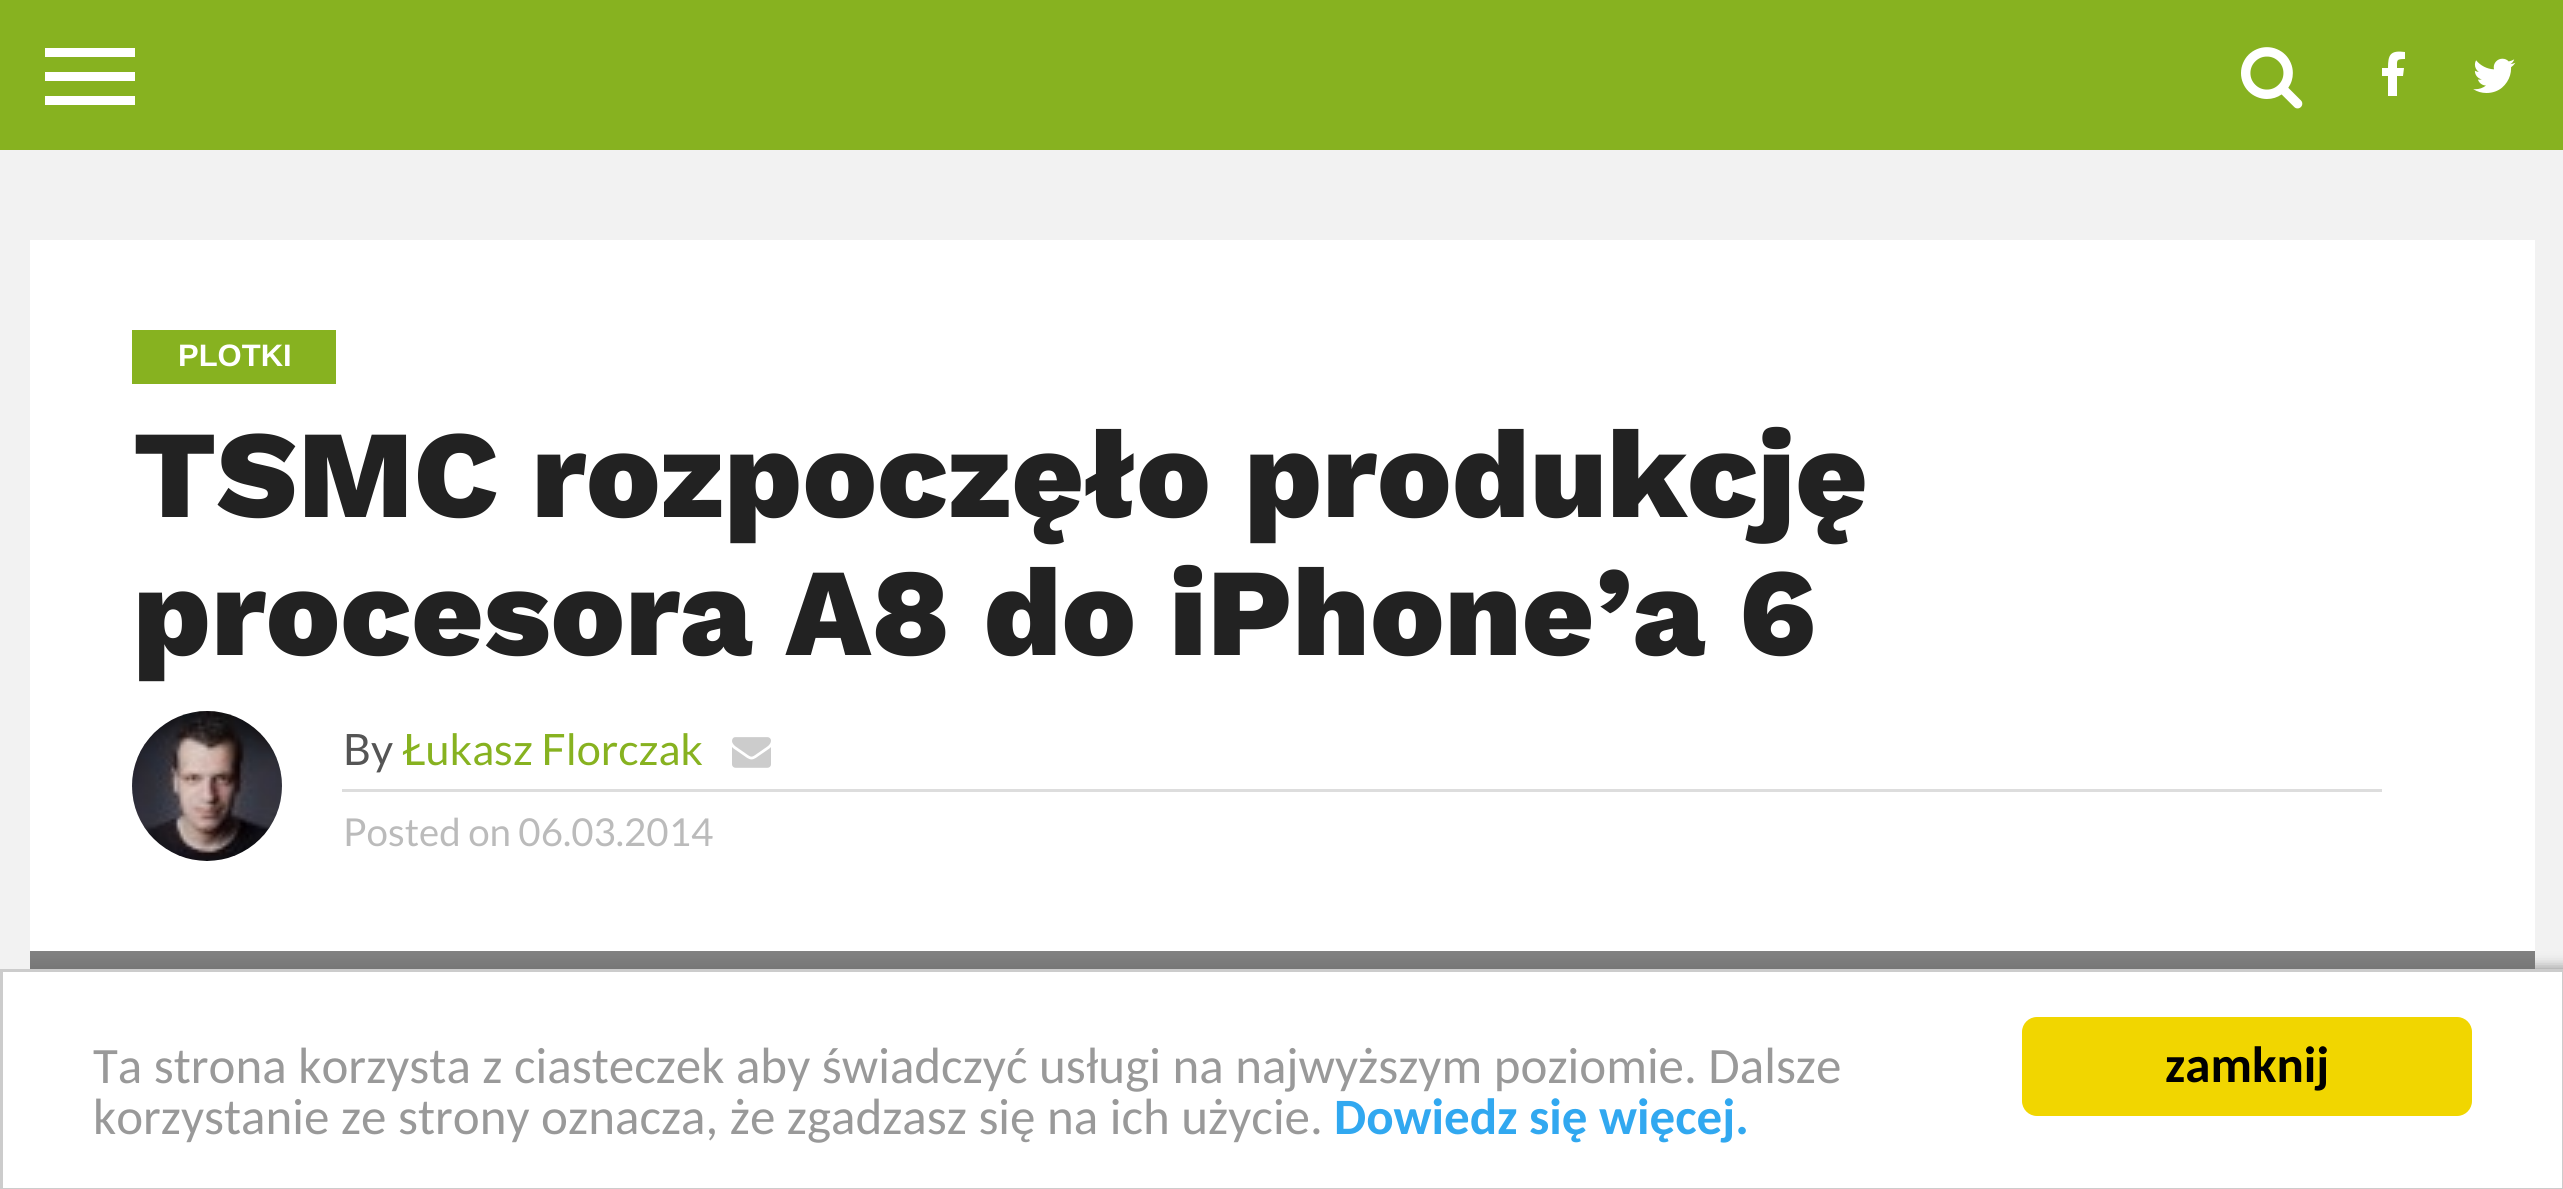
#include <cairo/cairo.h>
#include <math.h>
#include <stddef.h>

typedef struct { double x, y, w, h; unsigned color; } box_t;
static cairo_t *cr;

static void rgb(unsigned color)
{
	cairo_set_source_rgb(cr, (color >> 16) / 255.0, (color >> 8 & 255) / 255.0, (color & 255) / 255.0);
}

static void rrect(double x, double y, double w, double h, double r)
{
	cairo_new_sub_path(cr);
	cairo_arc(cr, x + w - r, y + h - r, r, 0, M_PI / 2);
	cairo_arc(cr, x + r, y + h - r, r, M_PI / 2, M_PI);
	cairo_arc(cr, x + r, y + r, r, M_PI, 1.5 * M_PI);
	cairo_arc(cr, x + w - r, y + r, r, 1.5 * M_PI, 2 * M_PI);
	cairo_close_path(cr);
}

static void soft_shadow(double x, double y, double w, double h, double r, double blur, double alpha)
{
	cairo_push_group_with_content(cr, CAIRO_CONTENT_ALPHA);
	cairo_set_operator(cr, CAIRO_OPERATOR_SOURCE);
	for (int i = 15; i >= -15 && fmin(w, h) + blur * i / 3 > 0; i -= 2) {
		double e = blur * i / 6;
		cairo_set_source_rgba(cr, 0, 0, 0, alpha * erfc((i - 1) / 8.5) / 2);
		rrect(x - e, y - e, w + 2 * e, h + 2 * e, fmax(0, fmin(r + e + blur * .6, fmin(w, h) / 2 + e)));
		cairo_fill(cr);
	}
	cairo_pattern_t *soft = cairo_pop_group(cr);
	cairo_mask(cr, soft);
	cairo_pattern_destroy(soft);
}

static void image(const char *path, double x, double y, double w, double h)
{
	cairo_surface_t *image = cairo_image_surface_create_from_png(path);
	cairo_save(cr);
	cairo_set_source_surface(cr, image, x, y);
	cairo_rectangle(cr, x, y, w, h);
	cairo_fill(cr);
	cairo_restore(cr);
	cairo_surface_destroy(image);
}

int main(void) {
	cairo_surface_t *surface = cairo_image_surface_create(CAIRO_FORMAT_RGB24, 2563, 1189);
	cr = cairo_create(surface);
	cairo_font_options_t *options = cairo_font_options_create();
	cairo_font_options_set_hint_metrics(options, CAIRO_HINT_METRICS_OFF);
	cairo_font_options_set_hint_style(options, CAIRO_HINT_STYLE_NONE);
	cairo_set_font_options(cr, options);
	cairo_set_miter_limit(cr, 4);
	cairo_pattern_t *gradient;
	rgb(0xf2f2f2);
	cairo_paint(cr);
	{
		static const box_t items[] = {
			{0, 0, 2563, 150, 0x87b220},
			{45, 48, 90, 9, 0xffffff},
			{45, 72, 90, 9, 0xffffff},
			{45, 96, 90, 9, 0xffffff},
		};
		for (size_t i = 0; i < sizeof items / sizeof *items; i++) {
			rgb(items[i].color);
			cairo_rectangle(cr, items[i].x, items[i].y, items[i].w, items[i].h);
			cairo_fill(cr);
		}
	}
	image("img/1.png", 2241, 47, 62, 62);
	cairo_new_path(cr);
	cairo_move_to(cr, 2405, 52);
	cairo_line_to(cr, 2405, 59);
	cairo_curve_to(cr, 2396, 59, 2397, 60, 2397, 68);
	cairo_line_to(cr, 2404, 68);
	cairo_line_to(cr, 2403, 76);
	cairo_line_to(cr, 2397, 76);
	cairo_line_to(cr, 2397, 96);
	cairo_line_to(cr, 2388, 96);
	cairo_line_to(cr, 2388, 76);
	cairo_line_to(cr, 2382, 76);
	cairo_line_to(cr, 2382, 68);
	cairo_line_to(cr, 2388, 68);
	cairo_curve_to(cr, 2388, 55, 2390, 50, 2405, 52);
	cairo_close_path(cr);
	cairo_fill(cr);
	image("img/2.png", 2473, 58, 43, 35);
	rgb(0x808080);
	soft_shadow(2355, 969, 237, 180, 6, 7.5, 1);
	rgb(0xffffff);
	cairo_rectangle(cr, 30, 240, 2505, 711);
	cairo_fill(cr);
	rgb(0x87b220);
	cairo_rectangle(cr, 132, 330, 204, 54);
	cairo_fill(cr);
	image("img/3.png", 132, 711, 150, 150);
	rgb(0xdddddd);
	cairo_rectangle(cr, 342, 789, 2040, 3);
	cairo_fill(cr);
	image("img/4.png", 732, 737, 39, 31);
	gradient = cairo_pattern_create_linear(1283, 819, 1283, 999);
	cairo_pattern_add_color_stop_rgba(gradient, 0, 1, 1, 1, 1);
	cairo_pattern_add_color_stop_rgba(gradient, 0.5, 0.6, 0.6, 0.6, 1);
	cairo_pattern_add_color_stop_rgba(gradient, 1, 0.4, 0.4, 0.4, 1);
	cairo_set_source(cr, gradient);
	cairo_pattern_destroy(gradient);
	cairo_rectangle(cr, 30, 951, 2505, 18);
	cairo_fill(cr);
	rgb(0xffffff);
	cairo_rectangle(cr, 1.5, 970.5, 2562, 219);
	cairo_fill_preserve(cr);
	rgb(0xcccccc);
	cairo_set_line_width(cr, 3);
	cairo_stroke(cr);
	rgb(0xf1d600);
	rrect(2022, 1017, 450, 99, 15);
	cairo_fill(cr);
	cairo_select_font_face(cr, "Liberation Sans", CAIRO_FONT_SLANT_NORMAL, CAIRO_FONT_WEIGHT_BOLD);
	cairo_set_font_size(cr, 31);
	rgb(0xffffff);
	cairo_move_to(cr, 178, 366);
	cairo_show_text(cr, "PLOTKI");
	cairo_select_font_face(cr, "Work Sans ExtraBold", CAIRO_FONT_SLANT_NORMAL, CAIRO_FONT_WEIGHT_NORMAL);
	cairo_set_font_size(cr, 124.75);
	rgb(0x222222);
	cairo_move_to(cr, 133, 517);
	cairo_show_text(cr, "TSMC rozpoczęło produkcję");
	cairo_move_to(cr, 133, 655);
	cairo_show_text(cr, "procesora A8 do iPhone’a 6");
	cairo_select_font_face(cr, "Lato", CAIRO_FONT_SLANT_NORMAL, CAIRO_FONT_WEIGHT_NORMAL);
	cairo_set_font_size(cr, 43.25);
	rgb(0x555555);
	cairo_move_to(cr, 343, 765);
	cairo_show_text(cr, "By");
	rgb(0x87b220);
	cairo_move_to(cr, 402, 765);
	cairo_show_text(cr, "Łukasz Florczak");
	cairo_set_font_size(cr, 38.5);
	rgb(0xbbbbbb);
	cairo_move_to(cr, 343, 846);
	cairo_show_text(cr, "Posted on 06.03.2014");
	cairo_select_font_face(cr, "Carlito", CAIRO_FONT_SLANT_NORMAL, CAIRO_FONT_WEIGHT_NORMAL);
	cairo_set_font_size(cr, 51);
	rgb(0x999999);
	cairo_move_to(cr, 93, 1083);
	cairo_show_text(cr, "Ta strona korzysta z ciasteczek aby świadczyć usługi na najwyższym poziomie. Dalsze");
	cairo_move_to(cr, 93, 1134);
	cairo_show_text(cr, "korzystanie ze strony oznacza, że zgadzasz się na ich użycie.");
	cairo_select_font_face(cr, "Carlito", CAIRO_FONT_SLANT_NORMAL, CAIRO_FONT_WEIGHT_BOLD);
	rgb(0x31a8f0);
	cairo_move_to(cr, 1334, 1134);
	cairo_show_text(cr, "Dowiedz się więcej.");
	rgb(0x000000);
	cairo_move_to(cr, 2165, 1082);
	cairo_show_text(cr, "zamknij");
	cairo_surface_write_to_png(surface, "page.png");
	cairo_font_options_destroy(options);
	cairo_destroy(cr);
	cairo_surface_destroy(surface);
	return 0;
}
